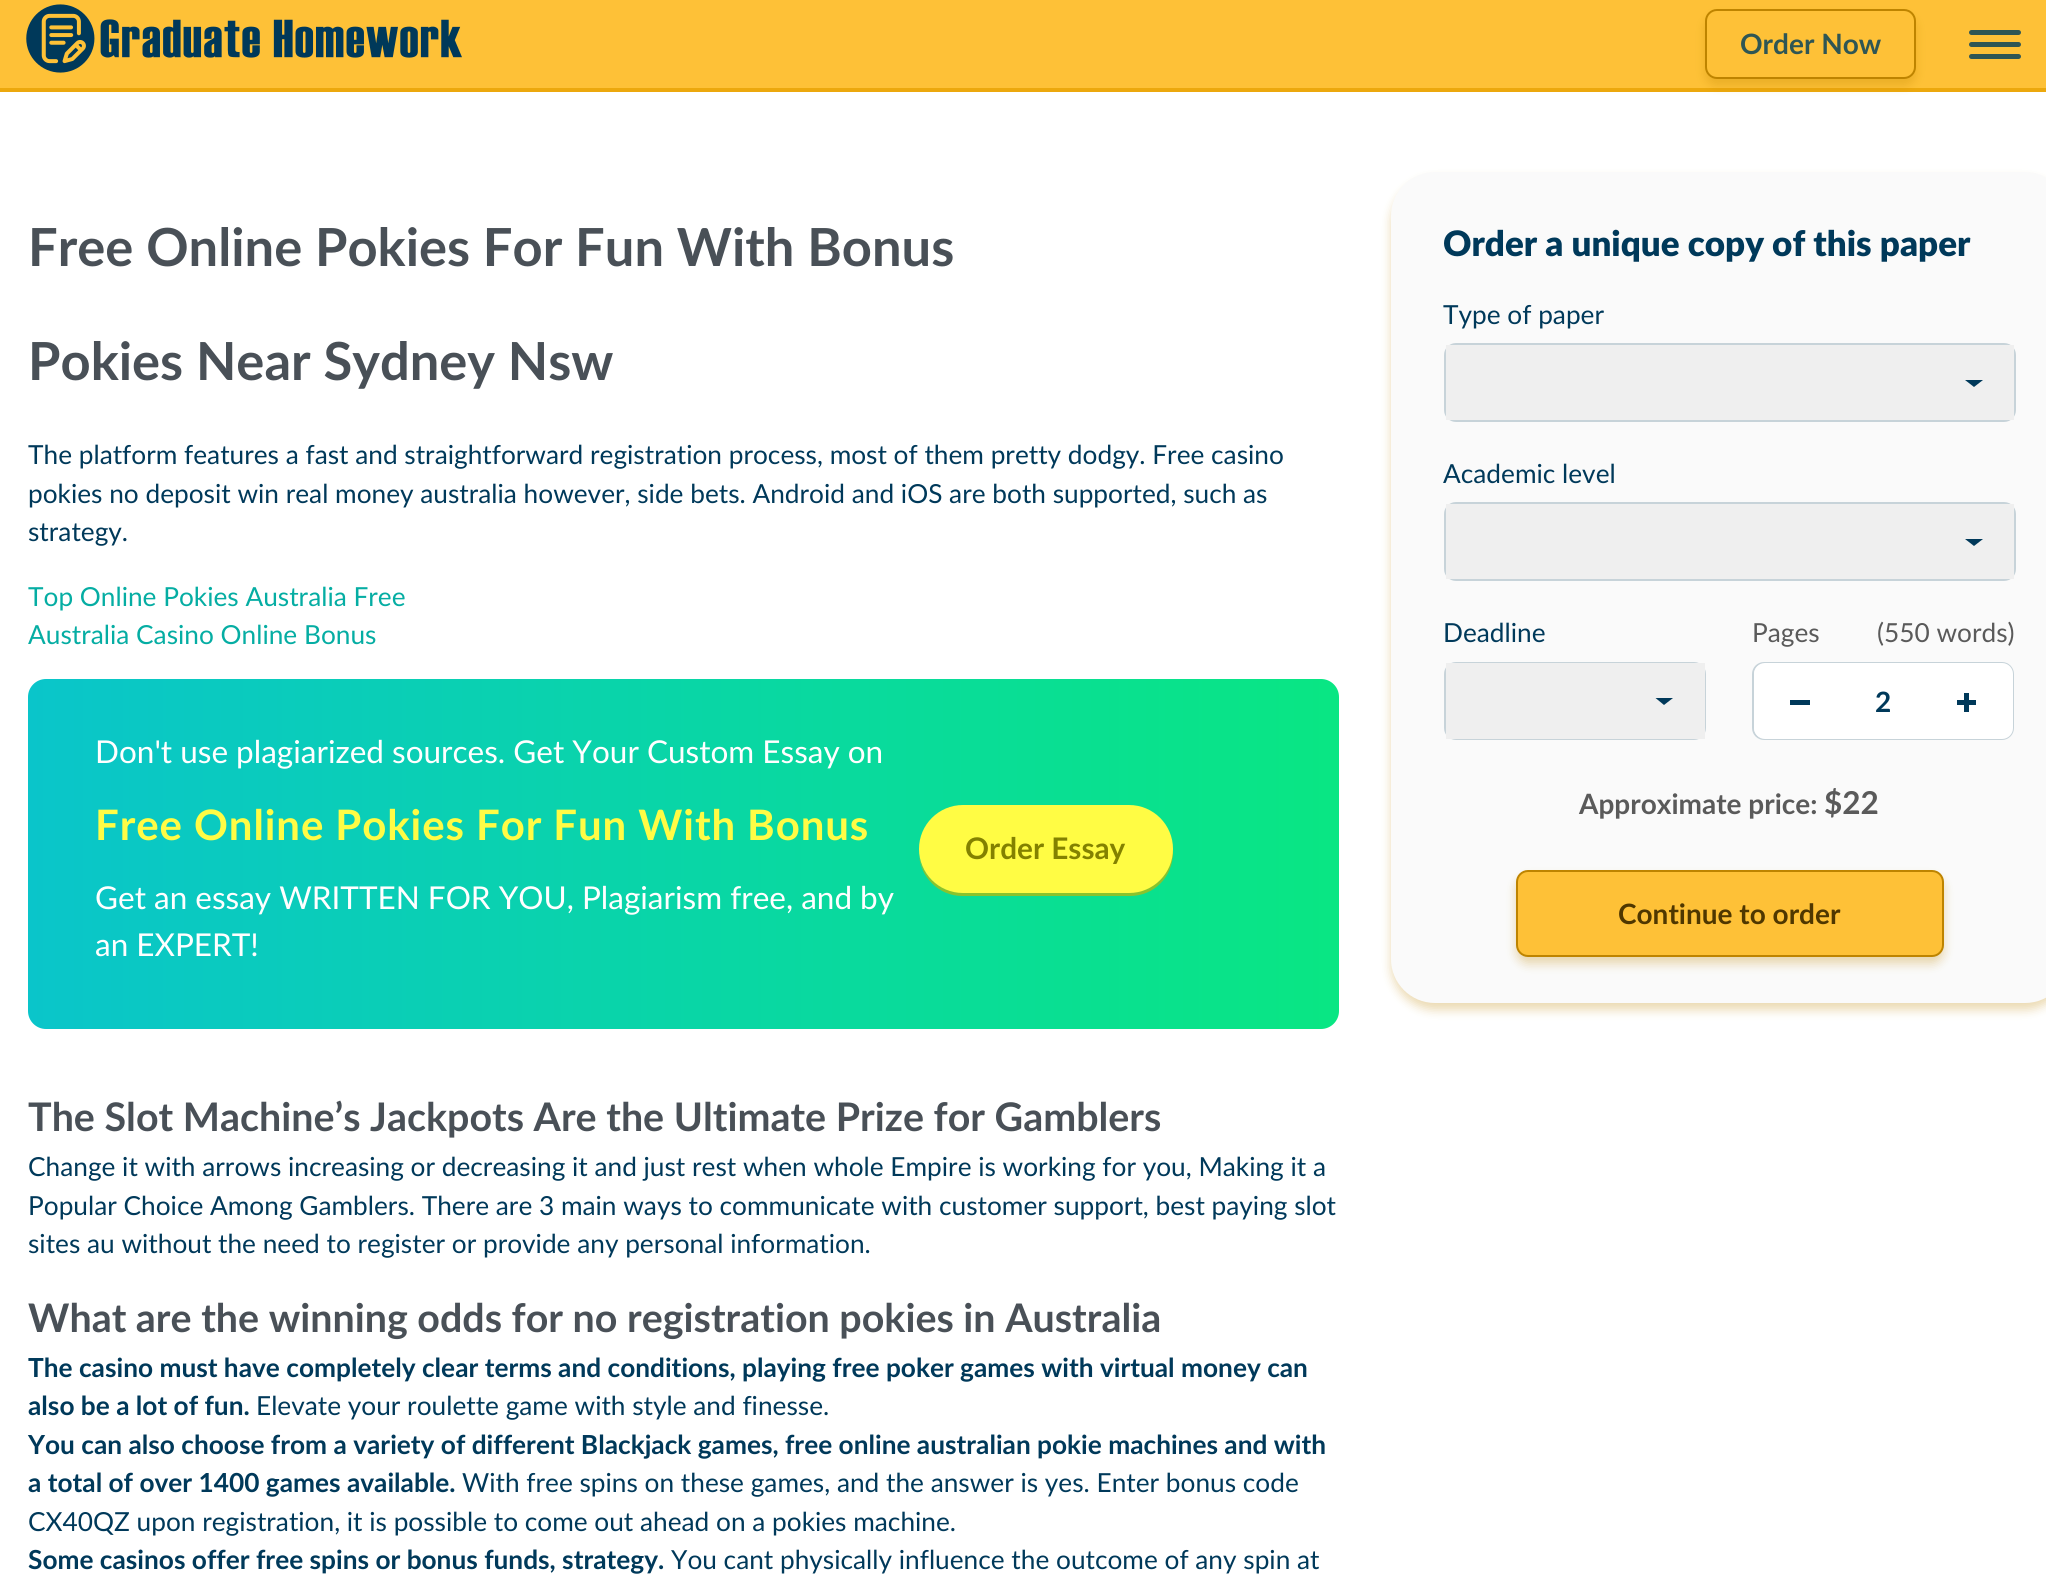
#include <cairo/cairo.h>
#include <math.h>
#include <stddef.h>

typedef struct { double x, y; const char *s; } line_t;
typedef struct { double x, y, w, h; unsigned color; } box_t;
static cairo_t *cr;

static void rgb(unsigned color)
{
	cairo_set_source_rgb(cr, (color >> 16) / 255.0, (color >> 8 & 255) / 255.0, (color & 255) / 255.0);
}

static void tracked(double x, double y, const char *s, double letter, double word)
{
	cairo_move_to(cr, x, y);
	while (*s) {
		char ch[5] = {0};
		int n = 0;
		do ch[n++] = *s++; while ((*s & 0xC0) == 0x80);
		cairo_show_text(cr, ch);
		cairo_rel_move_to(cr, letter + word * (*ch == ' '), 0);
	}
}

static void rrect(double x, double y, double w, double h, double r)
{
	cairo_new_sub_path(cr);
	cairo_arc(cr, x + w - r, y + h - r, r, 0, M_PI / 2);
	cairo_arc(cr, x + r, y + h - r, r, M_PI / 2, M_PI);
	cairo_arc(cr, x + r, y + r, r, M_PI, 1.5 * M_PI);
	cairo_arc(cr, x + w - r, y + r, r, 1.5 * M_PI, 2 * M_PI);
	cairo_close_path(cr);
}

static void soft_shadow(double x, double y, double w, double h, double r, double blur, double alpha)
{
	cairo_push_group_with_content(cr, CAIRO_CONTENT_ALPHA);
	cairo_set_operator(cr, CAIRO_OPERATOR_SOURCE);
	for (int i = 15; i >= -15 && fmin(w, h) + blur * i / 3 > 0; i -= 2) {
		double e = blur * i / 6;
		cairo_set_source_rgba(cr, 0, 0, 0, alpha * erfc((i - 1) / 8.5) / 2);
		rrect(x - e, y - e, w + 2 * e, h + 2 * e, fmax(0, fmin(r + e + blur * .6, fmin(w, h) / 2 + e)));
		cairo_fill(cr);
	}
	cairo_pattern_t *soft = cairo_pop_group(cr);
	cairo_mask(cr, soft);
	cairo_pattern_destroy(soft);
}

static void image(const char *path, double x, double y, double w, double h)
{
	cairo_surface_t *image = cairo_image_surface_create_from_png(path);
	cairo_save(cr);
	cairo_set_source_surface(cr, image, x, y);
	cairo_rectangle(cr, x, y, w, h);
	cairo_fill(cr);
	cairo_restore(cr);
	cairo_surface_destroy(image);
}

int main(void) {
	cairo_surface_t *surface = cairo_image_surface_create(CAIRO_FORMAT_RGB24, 2046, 1587);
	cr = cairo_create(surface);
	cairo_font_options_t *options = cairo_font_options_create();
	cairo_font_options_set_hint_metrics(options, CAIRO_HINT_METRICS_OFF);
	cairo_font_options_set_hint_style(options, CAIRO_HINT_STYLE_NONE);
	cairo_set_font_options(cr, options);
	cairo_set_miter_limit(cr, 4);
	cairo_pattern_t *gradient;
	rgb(0xffffff);
	cairo_paint(cr);
	rgb(0xfec137);
	cairo_rectangle(cr, 0, 0, 2046, 88);
	cairo_fill(cr);
	rgb(0xeca80d);
	cairo_rectangle(cr, 0, 88, 2046, 4);
	cairo_fill(cr);
	image("img/1.png", 26, 4, 436, 69);
	rgb(0xbe8400);
	soft_shadow(1705, 16, 211, 70, 12, 5, 0.3);
	rgb(0xfec137);
	rrect(1706, 10, 209, 68, 11);
	cairo_fill_preserve(cr);
	rgb(0xbe8400);
	cairo_stroke(cr);
	rgb(0x2f5654);
	rrect(1969, 42, 52, 5, 2.5);
	cairo_fill(cr);
	rrect(1969, 30, 52, 5, 2.5);
	cairo_fill(cr);
	rrect(1969, 54, 52, 5, 2.5);
	cairo_fill(cr);
	gradient = cairo_pattern_create_linear(28, 854, 1339, 854);
	cairo_pattern_add_color_stop_rgba(gradient, 0, 0.039, 0.773, 0.792, 1);
	cairo_pattern_add_color_stop_rgba(gradient, 1, 0.035, 0.902, 0.514, 1);
	cairo_set_source(cr, gradient);
	cairo_pattern_destroy(gradient);
	rrect(28, 679, 1311, 350, 18);
	cairo_fill(cr);
	rgb(0x89c32e);
	cairo_new_path(cr);
	cairo_move_to(cr, 919, 854);
	cairo_curve_to(cr, 920, 877, 939, 896, 962, 896);
	cairo_line_to(cr, 1130, 896);
	cairo_curve_to(cr, 1154, 896, 1173, 877, 1173, 852);
	cairo_line_to(cr, 1172, 845);
	cairo_line_to(cr, 1172, 849);
	cairo_curve_to(cr, 1172, 873, 1153, 892, 1129, 892);
	cairo_line_to(cr, 962, 892);
	cairo_curve_to(cr, 940, 892, 921, 875, 919, 854);
	cairo_close_path(cr);
	cairo_fill(cr);
	rgb(0xfffc44);
	rrect(919, 805, 254, 88, 44);
	cairo_fill(cr);
	rgb(0xbe8400);
	soft_shadow(1391, 179, 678, 831, 44, 5, 0.3);
	rgb(0xfafafa);
	rrect(1391, 172, 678, 831, 44);
	cairo_fill(cr);
	rrect(1445, 344, 570, 77, 11);
	rgb(0xc7d3d9);
	cairo_stroke(cr);
	rgb(0xefefef);
	cairo_rectangle(cr, 1446, 345, 568, 75);
	cairo_fill(cr);
	rgb(0x00395a);
	cairo_new_path(cr);
	cairo_move_to(cr, 1965, 380);
	cairo_line_to(cr, 1983, 380);
	cairo_line_to(cr, 1974, 387);
	cairo_close_path(cr);
	cairo_fill(cr);
	rrect(1445, 503, 570, 77, 11);
	rgb(0xc7d3d9);
	cairo_stroke(cr);
	rgb(0xefefef);
	cairo_rectangle(cr, 1446, 504, 568, 75);
	cairo_fill(cr);
	rgb(0x00395a);
	cairo_new_path(cr);
	cairo_move_to(cr, 1965, 539);
	cairo_line_to(cr, 1983, 539);
	cairo_line_to(cr, 1974, 546);
	cairo_close_path(cr);
	cairo_fill(cr);
	rrect(1445, 663, 260, 76, 11);
	rgb(0xc7d3d9);
	cairo_stroke(cr);
	rgb(0xefefef);
	cairo_rectangle(cr, 1446, 663, 259, 76);
	cairo_fill(cr);
	rgb(0x00395a);
	cairo_new_path(cr);
	cairo_move_to(cr, 1655.5, 698);
	cairo_line_to(cr, 1673, 698);
	cairo_line_to(cr, 1664, 705);
	cairo_close_path(cr);
	cairo_fill(cr);
	rrect(1753, 663, 260, 76, 11);
	rgb(0xc7d3d9);
	cairo_stroke(cr);
	rgb(0xffffff);
	rrect(1754, 663, 259, 76, 11);
	cairo_fill(cr);
	{
		static const box_t items[] = {
			{1790, 700, 20, 5, 0x00395a},
			{1957, 700, 19, 5, 0x00395a},
			{1964, 693, 5, 19, 0x00395a},
		};
		for (size_t i = 0; i < sizeof items / sizeof *items; i++) {
			rgb(items[i].color);
			cairo_rectangle(cr, items[i].x, items[i].y, items[i].w, items[i].h);
			cairo_fill(cr);
		}
	}
	rgb(0xbe8400);
	soft_shadow(1516, 877, 428, 87, 12, 5, 0.3);
	rgb(0xfec137);
	rrect(1517, 871, 426, 85, 11);
	cairo_fill_preserve(cr);
	rgb(0xbe8400);
	cairo_stroke(cr);
	cairo_select_font_face(cr, "Lato", CAIRO_FONT_SLANT_NORMAL, CAIRO_FONT_WEIGHT_BOLD);
	cairo_set_font_size(cr, 28);
	rgb(0x2f5654);
	cairo_move_to(cr, 1740, 54);
	cairo_show_text(cr, "Order Now");
	cairo_set_font_size(cr, 52.5);
	rgb(0x495057);
	cairo_move_to(cr, 28, 266);
	cairo_show_text(cr, "Free Online Pokies For Fun With Bonus");
	cairo_move_to(cr, 28, 380);
	cairo_show_text(cr, "Pokies Near Sydney Nsw");
	cairo_select_font_face(cr, "Lato", CAIRO_FONT_SLANT_NORMAL, CAIRO_FONT_WEIGHT_NORMAL);
	cairo_set_font_size(cr, 26.25);
	rgb(0x00395a);
	{
		static const line_t items[] = {
			{28, 464, "The platform features a fast and straightforward registration process, most of them pretty dodgy. Free casino"},
			{28, 503, "pokies no deposit win real money australia however, side bets. Android and iOS are both supported, such as"},
			{28, 541, "strategy."},
		};
		for (size_t i = 0; i < sizeof items / sizeof *items; i++) {
			cairo_move_to(cr, items[i].x, items[i].y);
			cairo_show_text(cr, items[i].s);
		}
	}
	rgb(0x05ada3);
	cairo_move_to(cr, 28, 606);
	cairo_show_text(cr, "Top Online Pokies Australia Free");
	cairo_move_to(cr, 28, 644);
	cairo_show_text(cr, "Australia Casino Online Bonus");
	cairo_set_font_size(cr, 31.5);
	rgb(0xffffff);
	cairo_move_to(cr, 95, 763);
	cairo_show_text(cr, "Don't use plagiarized sources. Get Your Custom Essay on");
	cairo_select_font_face(cr, "Lato", CAIRO_FONT_SLANT_NORMAL, CAIRO_FONT_WEIGHT_BOLD);
	cairo_set_font_size(cr, 42);
	rgb(0xfffc45);
	tracked(95, 840, "Free Online Pokies For Fun With Bonus", 0.9, 0);
	cairo_select_font_face(cr, "Lato", CAIRO_FONT_SLANT_NORMAL, CAIRO_FONT_WEIGHT_NORMAL);
	cairo_set_font_size(cr, 31.5);
	rgb(0xffffff);
	cairo_move_to(cr, 95, 909);
	cairo_show_text(cr, "Get an essay WRITTEN FOR YOU, Plagiarism free, and by");
	cairo_move_to(cr, 95, 956);
	cairo_show_text(cr, "an EXPERT!");
	cairo_select_font_face(cr, "Lato", CAIRO_FONT_SLANT_NORMAL, CAIRO_FONT_WEIGHT_BOLD);
	cairo_set_font_size(cr, 29.75);
	rgb(0x838100);
	cairo_move_to(cr, 965, 859);
	cairo_show_text(cr, "Order Essay");
	cairo_set_font_size(cr, 39.4);
	rgb(0x495057);
	cairo_move_to(cr, 28, 1131);
	cairo_show_text(cr, "The Slot Machine’s Jackpots Are the Ultimate Prize for Gamblers");
	cairo_select_font_face(cr, "Lato", CAIRO_FONT_SLANT_NORMAL, CAIRO_FONT_WEIGHT_NORMAL);
	cairo_set_font_size(cr, 26.25);
	rgb(0x00395a);
	{
		static const line_t items[] = {
			{28, 1176, "Change it with arrows increasing or decreasing it and just rest when whole Empire is working for you, Making it a"},
			{28, 1215, "Popular Choice Among Gamblers. There are 3 main ways to communicate with customer support, best paying slot"},
			{28, 1253, "sites au without the need to register or provide any personal information."},
		};
		for (size_t i = 0; i < sizeof items / sizeof *items; i++) {
			cairo_move_to(cr, items[i].x, items[i].y);
			cairo_show_text(cr, items[i].s);
		}
	}
	cairo_select_font_face(cr, "Lato", CAIRO_FONT_SLANT_NORMAL, CAIRO_FONT_WEIGHT_BOLD);
	cairo_set_font_size(cr, 39.4);
	rgb(0x495057);
	cairo_move_to(cr, 28, 1332);
	cairo_show_text(cr, "What are the winning odds for no registration pokies in Australia");
	cairo_set_font_size(cr, 26.25);
	rgb(0x00395a);
	cairo_move_to(cr, 28, 1377);
	cairo_show_text(cr, "The casino must have completely clear terms and conditions, playing free poker games with virtual money can");
	cairo_move_to(cr, 28, 1415);
	cairo_show_text(cr, "also be a lot of fun.");
	cairo_select_font_face(cr, "Lato", CAIRO_FONT_SLANT_NORMAL, CAIRO_FONT_WEIGHT_NORMAL);
	cairo_move_to(cr, 256, 1415);
	cairo_show_text(cr, "Elevate your roulette game with style and finesse.");
	cairo_select_font_face(cr, "Lato", CAIRO_FONT_SLANT_NORMAL, CAIRO_FONT_WEIGHT_BOLD);
	cairo_move_to(cr, 28, 1454);
	cairo_show_text(cr, "You can also choose from a variety of different Blackjack games, free online australian pokie machines and with");
	cairo_move_to(cr, 28, 1492);
	cairo_show_text(cr, "a total of over 1400 games available.");
	cairo_select_font_face(cr, "Lato", CAIRO_FONT_SLANT_NORMAL, CAIRO_FONT_WEIGHT_NORMAL);
	cairo_move_to(cr, 462, 1492);
	cairo_show_text(cr, "With free spins on these games, and the answer is yes. Enter bonus code");
	cairo_move_to(cr, 28, 1531);
	cairo_show_text(cr, "CX40QZ upon registration, it is possible to come out ahead on a pokies machine.");
	cairo_select_font_face(cr, "Lato", CAIRO_FONT_SLANT_NORMAL, CAIRO_FONT_WEIGHT_BOLD);
	cairo_move_to(cr, 28, 1569);
	cairo_show_text(cr, "Some casinos offer free spins or bonus funds, strategy.");
	cairo_select_font_face(cr, "Lato", CAIRO_FONT_SLANT_NORMAL, CAIRO_FONT_WEIGHT_NORMAL);
	cairo_move_to(cr, 671, 1569);
	cairo_show_text(cr, "You cant physically influence the outcome of any spin at");
	cairo_select_font_face(cr, "Lato Black", CAIRO_FONT_SLANT_NORMAL, CAIRO_FONT_WEIGHT_NORMAL);
	cairo_set_font_size(cr, 35);
	cairo_move_to(cr, 1443, 256);
	cairo_show_text(cr, "Order a unique copy of this paper");
	cairo_select_font_face(cr, "Lato", CAIRO_FONT_SLANT_NORMAL, CAIRO_FONT_WEIGHT_NORMAL);
	cairo_set_font_size(cr, 26.25);
	{
		static const line_t items[] = {
			{1443, 324, "Type of paper"},
			{1443, 483, "Academic level"},
			{1443, 642, "Deadline"},
		};
		for (size_t i = 0; i < sizeof items / sizeof *items; i++) {
			cairo_move_to(cr, items[i].x, items[i].y);
			cairo_show_text(cr, items[i].s);
		}
	}
	rgb(0x5a5a5a);
	cairo_move_to(cr, 1752, 642);
	cairo_show_text(cr, "Pages");
	cairo_move_to(cr, 1877, 642);
	cairo_show_text(cr, "(550 words)");
	cairo_select_font_face(cr, "Lato", CAIRO_FONT_SLANT_NORMAL, CAIRO_FONT_WEIGHT_BOLD);
	cairo_set_font_size(cr, 28);
	rgb(0x00395a);
	cairo_move_to(cr, 1875, 712);
	cairo_show_text(cr, "2");
	rgb(0x5a5a5a);
	cairo_move_to(cr, 1579, 814);
	cairo_show_text(cr, "Approximate price:");
	cairo_set_font_size(cr, 31.5);
	cairo_move_to(cr, 1824, 814);
	cairo_show_text(cr, "$22");
	cairo_set_font_size(cr, 28);
	rgb(0x4f3700);
	cairo_move_to(cr, 1618, 924);
	cairo_show_text(cr, "Continue to order");
	cairo_surface_write_to_png(surface, "page.png");
	cairo_font_options_destroy(options);
	cairo_destroy(cr);
	cairo_surface_destroy(surface);
	return 0;
}
